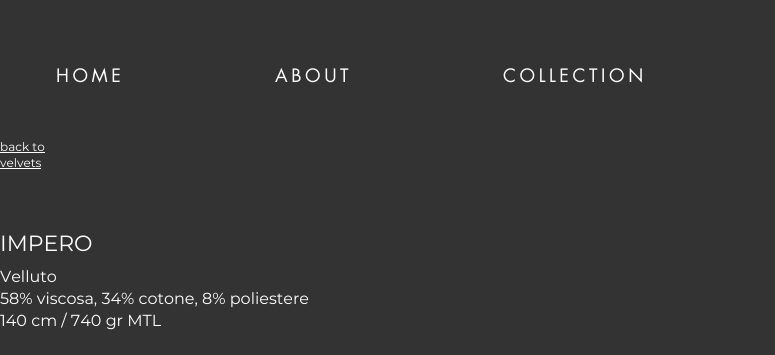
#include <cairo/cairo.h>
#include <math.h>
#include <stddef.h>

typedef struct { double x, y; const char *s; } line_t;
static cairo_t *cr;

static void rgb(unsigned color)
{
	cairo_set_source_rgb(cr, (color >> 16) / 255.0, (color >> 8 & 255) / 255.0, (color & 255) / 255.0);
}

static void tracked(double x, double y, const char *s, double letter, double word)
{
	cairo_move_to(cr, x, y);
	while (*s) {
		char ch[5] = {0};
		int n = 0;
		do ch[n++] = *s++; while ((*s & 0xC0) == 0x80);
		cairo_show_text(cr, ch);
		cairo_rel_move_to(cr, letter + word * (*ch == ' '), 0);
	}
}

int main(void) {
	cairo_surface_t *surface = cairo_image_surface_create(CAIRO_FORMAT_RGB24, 775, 355);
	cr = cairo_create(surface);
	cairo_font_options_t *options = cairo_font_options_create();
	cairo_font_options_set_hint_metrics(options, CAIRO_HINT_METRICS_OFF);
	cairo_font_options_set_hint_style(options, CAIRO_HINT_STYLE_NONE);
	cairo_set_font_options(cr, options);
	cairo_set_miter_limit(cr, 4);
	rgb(0x333333);
	cairo_paint(cr);
	rgb(0xffffff);
	cairo_rectangle(cr, 0, 152, 45, 1);
	cairo_fill(cr);
	cairo_rectangle(cr, 0, 168, 41, 1);
	cairo_fill(cr);
	cairo_select_font_face(cr, "futura", CAIRO_FONT_SLANT_NORMAL, CAIRO_FONT_WEIGHT_NORMAL);
	cairo_set_font_size(cr, 18);
	{
		static const line_t items[] = {
			{56, 82, "HOME"},
			{275, 82, "ABOUT"},
			{503, 82, "COLLECTION"},
		};
		for (size_t i = 0; i < sizeof items / sizeof *items; i++) {
			tracked(items[i].x, items[i].y, items[i].s, 3.6, 0);
		}
	}
	cairo_select_font_face(cr, "Montserrat", CAIRO_FONT_SLANT_NORMAL, CAIRO_FONT_WEIGHT_NORMAL);
	cairo_set_font_size(cr, 12);
	cairo_move_to(cr, 0, 151);
	cairo_show_text(cr, "back to");
	cairo_move_to(cr, 0, 167);
	cairo_show_text(cr, "velvets");
	cairo_set_font_size(cr, 22);
	cairo_move_to(cr, 0, 251);
	cairo_show_text(cr, "IMPERO");
	cairo_set_font_size(cr, 16);
	{
		static const line_t items[] = {
			{0, 282, "Velluto"},
			{0, 304, "58% viscosa, 34% cotone, 8% poliestere"},
			{0, 326, "140 cm / 740 gr MTL"},
		};
		for (size_t i = 0; i < sizeof items / sizeof *items; i++) {
			cairo_move_to(cr, items[i].x, items[i].y);
			cairo_show_text(cr, items[i].s);
		}
	}
	cairo_surface_write_to_png(surface, "page.png");
	cairo_font_options_destroy(options);
	cairo_destroy(cr);
	cairo_surface_destroy(surface);
	return 0;
}
